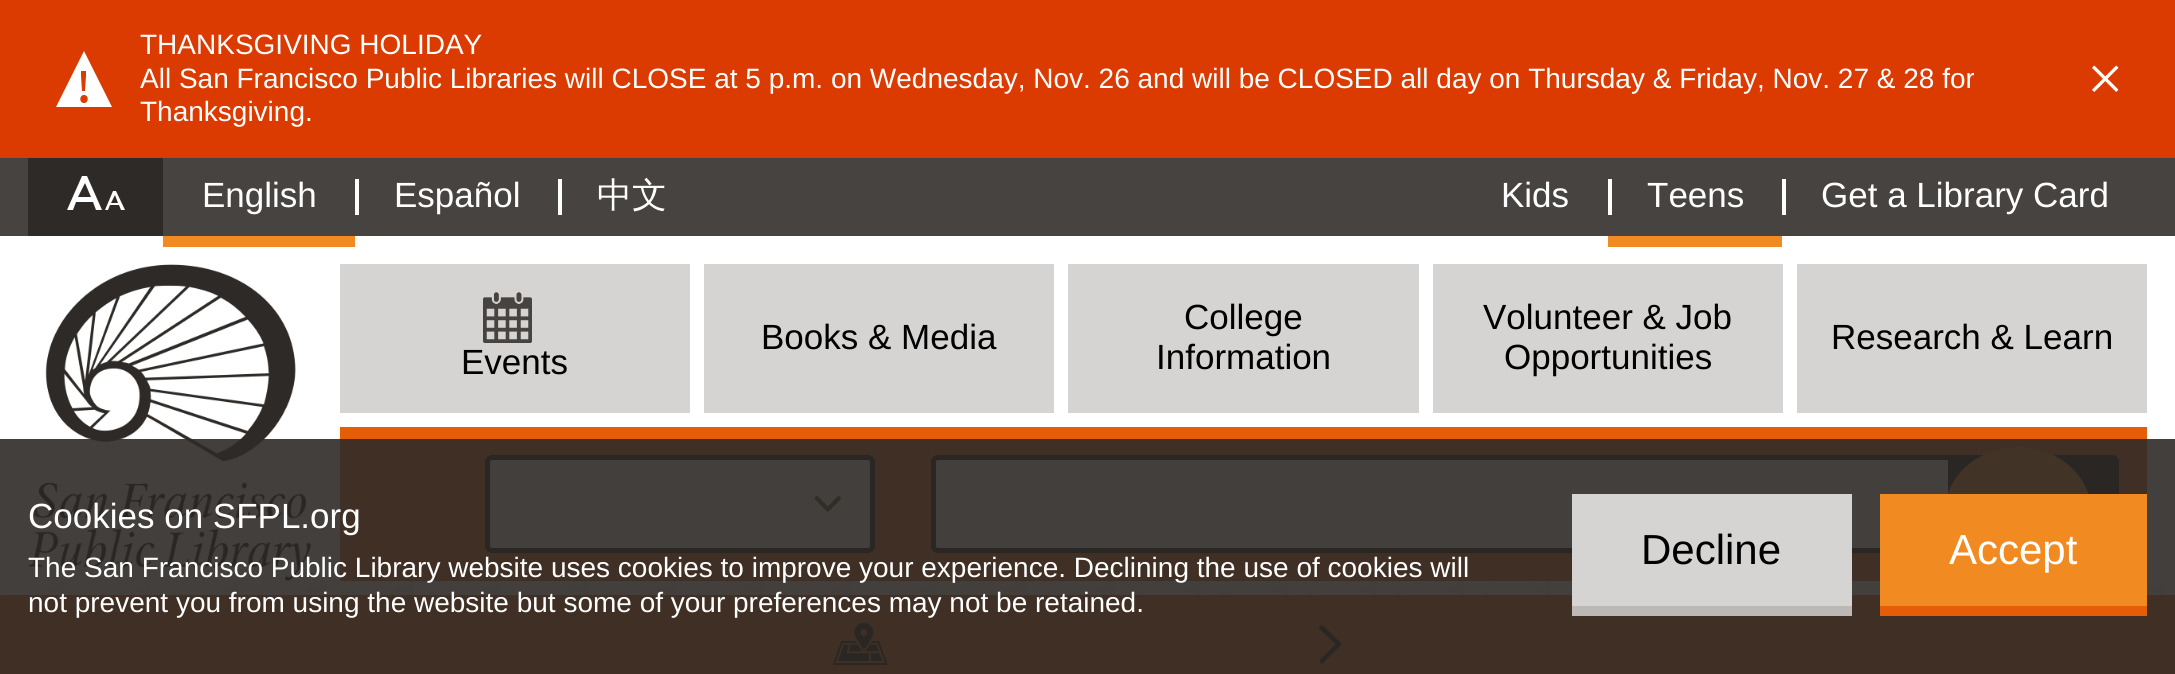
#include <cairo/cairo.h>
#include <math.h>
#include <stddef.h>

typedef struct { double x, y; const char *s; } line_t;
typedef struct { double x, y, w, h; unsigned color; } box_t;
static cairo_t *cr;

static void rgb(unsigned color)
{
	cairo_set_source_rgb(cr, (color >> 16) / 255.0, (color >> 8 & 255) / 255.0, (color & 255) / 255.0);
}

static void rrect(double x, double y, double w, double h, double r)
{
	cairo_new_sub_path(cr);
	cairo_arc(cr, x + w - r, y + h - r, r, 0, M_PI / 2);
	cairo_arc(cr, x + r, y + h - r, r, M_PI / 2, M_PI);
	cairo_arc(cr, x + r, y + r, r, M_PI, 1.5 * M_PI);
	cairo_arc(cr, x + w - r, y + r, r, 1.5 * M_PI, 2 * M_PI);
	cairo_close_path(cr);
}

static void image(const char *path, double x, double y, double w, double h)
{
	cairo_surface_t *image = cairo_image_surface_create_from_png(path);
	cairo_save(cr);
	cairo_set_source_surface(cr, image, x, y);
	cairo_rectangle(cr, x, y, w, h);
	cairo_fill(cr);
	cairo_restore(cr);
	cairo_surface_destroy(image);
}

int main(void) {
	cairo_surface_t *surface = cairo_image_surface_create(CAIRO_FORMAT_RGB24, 2175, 674);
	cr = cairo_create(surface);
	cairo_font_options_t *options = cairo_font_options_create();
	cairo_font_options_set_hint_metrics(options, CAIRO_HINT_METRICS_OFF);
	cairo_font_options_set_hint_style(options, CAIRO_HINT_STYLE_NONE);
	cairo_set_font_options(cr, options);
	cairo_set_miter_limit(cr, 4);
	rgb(0xffffff);
	cairo_paint(cr);
	image("img/1.png", 0, 581, 2175, 14);
	rgb(0xdb3a00);
	cairo_rectangle(cr, 0, 0, 2175, 158);
	cairo_fill(cr);
	rgb(0xffffff);
	cairo_new_path(cr);
	cairo_move_to(cr, 84, 51);
	cairo_line_to(cr, 56, 107);
	cairo_line_to(cr, 112, 107);
	cairo_close_path(cr);
	cairo_move_to(cr, 81, 71);
	cairo_line_to(cr, 86, 71);
	cairo_line_to(cr, 86, 76);
	cairo_line_to(cr, 85, 91);
	cairo_line_to(cr, 82, 91);
	cairo_line_to(cr, 81, 76);
	cairo_close_path(cr);
	cairo_move_to(cr, 84, 103);
	cairo_curve_to(cr, 79, 103, 79, 95, 84, 95);
	cairo_curve_to(cr, 89, 95, 89, 103, 84, 103);
	cairo_close_path(cr);
	cairo_fill(cr);
	image("img/2.png", 2092, 65, 27, 27);
	rgb(0x474340);
	cairo_rectangle(cr, 0, 158, 2175, 78);
	cairo_fill(cr);
	rgb(0x2e2a27);
	cairo_rectangle(cr, 28, 158, 135, 78);
	cairo_fill(cr);
	rgb(0xffffff);
	cairo_new_path(cr);
	cairo_move_to(cr, 87, 176);
	cairo_line_to(cr, 102, 210);
	cairo_line_to(cr, 96, 210);
	cairo_line_to(cr, 93, 202);
	cairo_line_to(cr, 76, 202);
	cairo_line_to(cr, 73, 210);
	cairo_line_to(cr, 67, 210);
	cairo_line_to(cr, 82, 176);
	cairo_close_path(cr);
	cairo_move_to(cr, 116, 191);
	cairo_line_to(cr, 125, 210);
	cairo_line_to(cr, 121, 210);
	cairo_line_to(cr, 119, 205);
	cairo_line_to(cr, 110, 205);
	cairo_line_to(cr, 108, 210);
	cairo_line_to(cr, 105, 210);
	cairo_line_to(cr, 113, 191);
	cairo_close_path(cr);
	cairo_move_to(cr, 115, 195);
	cairo_line_to(cr, 111, 203);
	cairo_line_to(cr, 118, 203);
	cairo_close_path(cr);
	cairo_move_to(cr, 85, 183);
	cairo_line_to(cr, 78, 197);
	cairo_line_to(cr, 91, 197);
	cairo_close_path(cr);
	cairo_fill(cr);
	{
		static const box_t items[] = {
			{163, 236, 192, 11, 0xf18b21},
			{355, 179, 4, 36, 0xffffff},
			{558, 179, 4, 36, 0xffffff},
			{1608, 179, 4, 36, 0xffffff},
			{1608, 236, 174, 11, 0xf18b21},
			{1782, 179, 4, 36, 0xffffff},
		};
		for (size_t i = 0; i < sizeof items / sizeof *items; i++) {
			rgb(items[i].color);
			cairo_rectangle(cr, items[i].x, items[i].y, items[i].w, items[i].h);
			cairo_fill(cr);
		}
	}
	image("img/3.png", 28, 264, 283, 317);
	{
		static const box_t items[] = {
			{704, 264, 350, 149, 0xd6d4d2},
			{1068, 264, 351, 149, 0xd6d4d2},
			{1433, 264, 350, 149, 0xd6d4d2},
			{1797, 264, 350, 149, 0xd6d4d2},
			{340, 264, 350, 149, 0xd6d4d2},
		};
		for (size_t i = 0; i < sizeof items / sizeof *items; i++) {
			rgb(items[i].color);
			cairo_rectangle(cr, items[i].x, items[i].y, items[i].w, items[i].h);
			cairo_fill(cr);
		}
	}
	image("img/4.png", 483, 292, 49, 51);
	rgb(0xe65d07);
	cairo_rectangle(cr, 340, 427, 1807, 154);
	cairo_fill(cr);
	rgb(0xffffff);
	rrect(485, 455, 390, 98, 7);
	cairo_fill(cr);
	image("img/5.png", 814, 496, 27, 16);
	rrect(487.5, 457.5, 385, 93, 4.5);
	rgb(0x000000);
	cairo_set_line_width(cr, 5);
	cairo_stroke(cr);
	rgb(0xffffff);
	cairo_new_path(cr);
	cairo_move_to(cr, 938, 457.5);
	cairo_line_to(cr, 1950.5, 457.5);
	cairo_line_to(cr, 1950.5, 550.5);
	cairo_line_to(cr, 938, 550.5);
	cairo_curve_to(cr, 935.5, 550.5, 933.5, 548.5, 933.5, 546);
	cairo_line_to(cr, 933.5, 462);
	cairo_curve_to(cr, 933.5, 459.5, 935.5, 457.5, 938, 457.5);
	cairo_close_path(cr);
	cairo_fill_preserve(cr);
	rgb(0x000000);
	cairo_stroke(cr);
	cairo_new_path(cr);
	cairo_move_to(cr, 1953, 455);
	cairo_line_to(cr, 2112, 455);
	cairo_curve_to(cr, 2116, 455, 2119, 458, 2119, 462);
	cairo_line_to(cr, 2119, 546);
	cairo_curve_to(cr, 2119, 550, 2116, 553, 2112, 553);
	cairo_line_to(cr, 1953, 553);
	cairo_close_path(cr);
	cairo_fill(cr);
	rgb(0xf18b21);
	cairo_new_path(cr);
	cairo_move_to(cr, 2018, 447);
	cairo_curve_to(cr, 1981, 447, 1944, 474, 1945, 514);
	cairo_curve_to(cr, 1946, 526, 1950, 538, 1957, 547);
	cairo_line_to(cr, 1954, 575);
	cairo_curve_to(cr, 1953, 577, 1952, 585, 1957, 584);
	cairo_line_to(cr, 1986, 571);
	cairo_curve_to(cr, 2002, 578, 2020, 579, 2037, 575);
	cairo_curve_to(cr, 2052, 572, 2066, 564, 2076, 552);
	cairo_curve_to(cr, 2086, 541, 2091, 527, 2091, 512);
	cairo_curve_to(cr, 2091, 473, 2055, 447, 2018, 447);
	cairo_close_path(cr);
	cairo_fill(cr);
	rgb(0xe65d07);
	cairo_rectangle(cr, 0, 595, 2175, 79);
	cairo_fill(cr);
	image("img/6.png", 833, 623, 55, 42);
	image("img/7.png", 1319, 625, 23, 39);
	cairo_set_source_rgba(cr, 0.18, 0.165, 0.153, 0.9);
	cairo_rectangle(cr, 0, 439, 2175, 235);
	cairo_fill(cr);
	rgb(0xbbb8b5);
	cairo_new_path(cr);
	cairo_move_to(cr, 1572, 606);
	cairo_line_to(cr, 1572, 616);
	cairo_line_to(cr, 1852, 616);
	cairo_line_to(cr, 1852, 504);
	cairo_line_to(cr, 1852, 606);
	cairo_close_path(cr);
	cairo_fill(cr);
	{
		static const box_t items[] = {
			{1572, 494, 280, 112, 0xd6d4d2},
			{1880, 606, 267, 10, 0xe65d07},
			{1880, 494, 267, 112, 0xf18b21},
		};
		for (size_t i = 0; i < sizeof items / sizeof *items; i++) {
			rgb(items[i].color);
			cairo_rectangle(cr, items[i].x, items[i].y, items[i].w, items[i].h);
			cairo_fill(cr);
		}
	}
	cairo_select_font_face(cr, "Liberation Sans", CAIRO_FONT_SLANT_NORMAL, CAIRO_FONT_WEIGHT_NORMAL);
	cairo_set_font_size(cr, 28);
	rgb(0xffffff);
	{
		static const line_t items[] = {
			{140, 54, "THANKSGIVING HOLIDAY"},
			{140, 88, "All San Francisco Public Libraries will CLOSE at 5 p.m. on Wednesday, Nov. 26 and will be CLOSED all day on Thursday & Friday, Nov. 27 & 28 for"},
			{140, 121, "Thanksgiving."},
		};
		for (size_t i = 0; i < sizeof items / sizeof *items; i++) {
			cairo_move_to(cr, items[i].x, items[i].y);
			cairo_show_text(cr, items[i].s);
		}
	}
	cairo_set_font_size(cr, 35);
	cairo_move_to(cr, 202, 207);
	cairo_show_text(cr, "English");
	cairo_move_to(cr, 394, 207);
	cairo_show_text(cr, "Español");
	cairo_select_font_face(cr, "WenQuanYi Zen Hei Medium", CAIRO_FONT_SLANT_NORMAL, CAIRO_FONT_WEIGHT_NORMAL);
	cairo_move_to(cr, 597, 207);
	cairo_show_text(cr, "中文");
	cairo_select_font_face(cr, "Liberation Sans", CAIRO_FONT_SLANT_NORMAL, CAIRO_FONT_WEIGHT_NORMAL);
	{
		static const line_t items[] = {
			{1501, 207, "Kids"},
			{1647, 207, "Teens"},
			{1821, 207, "Get a Library Card"},
		};
		for (size_t i = 0; i < sizeof items / sizeof *items; i++) {
			cairo_move_to(cr, items[i].x, items[i].y);
			cairo_show_text(cr, items[i].s);
		}
	}
	rgb(0x000000);
	{
		static const line_t items[] = {
			{761, 349, "Books & Media"},
			{1184, 329, "College"},
			{1156, 369, "Information"},
			{1483, 329, "Volunteer & Job"},
			{1504, 369, "Opportunities"},
			{1831, 349, "Research & Learn"},
			{461, 374, "Events"},
		};
		for (size_t i = 0; i < sizeof items / sizeof *items; i++) {
			cairo_move_to(cr, items[i].x, items[i].y);
			cairo_show_text(cr, items[i].s);
		}
	}
	rgb(0xffffff);
	cairo_move_to(cr, 28, 528);
	cairo_show_text(cr, "Cookies on SFPL.org");
	cairo_set_font_size(cr, 28);
	cairo_move_to(cr, 28, 577);
	cairo_show_text(cr, "The San Francisco Public Library website uses cookies to improve your experience. Declining the use of cookies will");
	cairo_move_to(cr, 28, 612);
	cairo_show_text(cr, "not prevent you from using the website but some of your preferences may not be retained.");
	cairo_set_font_size(cr, 42);
	rgb(0x000000);
	cairo_move_to(cr, 1641, 564);
	cairo_show_text(cr, "Decline");
	rgb(0xffffff);
	cairo_move_to(cr, 1949, 564);
	cairo_show_text(cr, "Accept");
	cairo_surface_write_to_png(surface, "page.png");
	cairo_font_options_destroy(options);
	cairo_destroy(cr);
	cairo_surface_destroy(surface);
	return 0;
}
